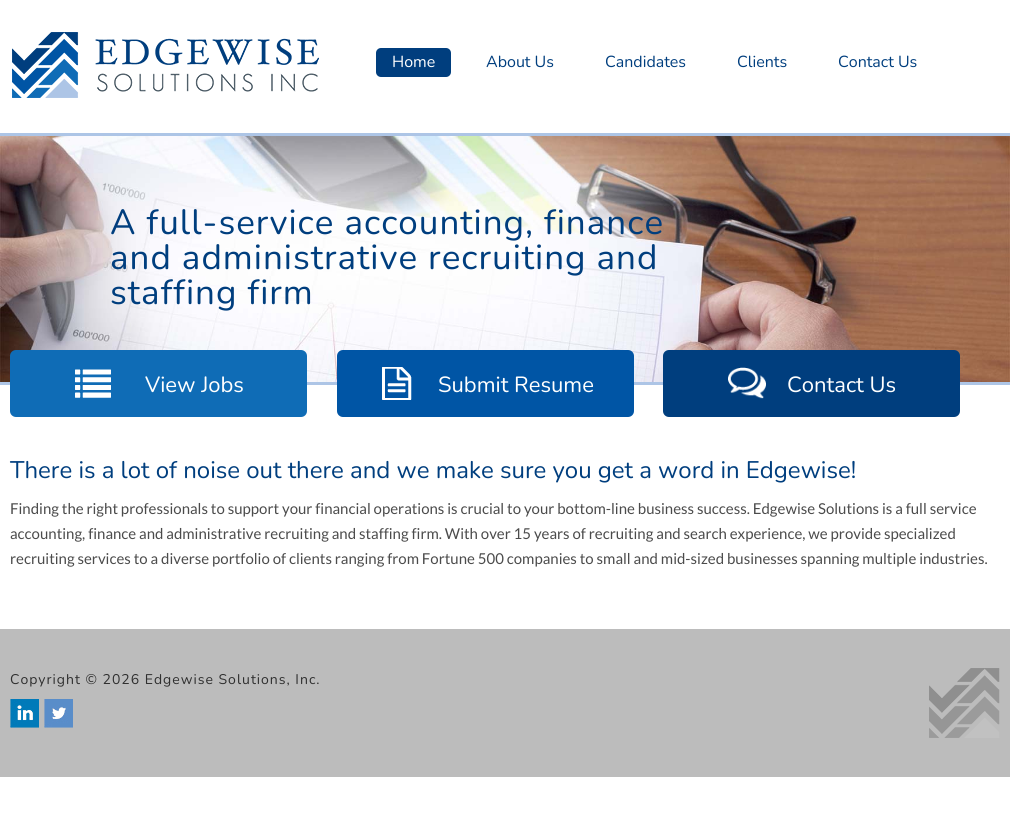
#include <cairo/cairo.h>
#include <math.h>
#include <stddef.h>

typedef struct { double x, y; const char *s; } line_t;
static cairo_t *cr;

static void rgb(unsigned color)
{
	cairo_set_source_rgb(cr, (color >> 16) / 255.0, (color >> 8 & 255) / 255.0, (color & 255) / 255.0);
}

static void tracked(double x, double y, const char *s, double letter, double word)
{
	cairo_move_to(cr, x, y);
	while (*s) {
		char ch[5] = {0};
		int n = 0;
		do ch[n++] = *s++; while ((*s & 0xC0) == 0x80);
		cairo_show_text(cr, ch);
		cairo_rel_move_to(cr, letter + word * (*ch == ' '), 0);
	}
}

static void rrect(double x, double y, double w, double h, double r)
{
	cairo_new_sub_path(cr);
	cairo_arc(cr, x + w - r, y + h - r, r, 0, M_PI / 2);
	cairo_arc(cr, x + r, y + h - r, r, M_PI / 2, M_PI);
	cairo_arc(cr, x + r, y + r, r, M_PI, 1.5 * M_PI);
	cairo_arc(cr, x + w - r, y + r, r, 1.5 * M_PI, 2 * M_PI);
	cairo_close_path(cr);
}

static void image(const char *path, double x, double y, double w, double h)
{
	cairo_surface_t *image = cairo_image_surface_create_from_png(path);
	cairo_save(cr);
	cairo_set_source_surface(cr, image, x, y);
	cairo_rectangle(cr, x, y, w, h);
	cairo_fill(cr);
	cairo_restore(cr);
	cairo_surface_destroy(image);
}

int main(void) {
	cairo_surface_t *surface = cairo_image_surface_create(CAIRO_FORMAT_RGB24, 1010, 814);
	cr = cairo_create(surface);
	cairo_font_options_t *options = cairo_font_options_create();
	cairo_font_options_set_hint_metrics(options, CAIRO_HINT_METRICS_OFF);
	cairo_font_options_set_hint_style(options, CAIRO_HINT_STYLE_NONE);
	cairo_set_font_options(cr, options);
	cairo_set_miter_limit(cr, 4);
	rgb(0xffffff);
	cairo_paint(cr);
	image("img/1.png", 12, 32, 307, 66);
	rgb(0x003e7e);
	rrect(376, 48, 75, 29, 5);
	cairo_fill(cr);
	rgb(0xadc5e6);
	cairo_rectangle(cr, 0, 133, 1010, 3);
	cairo_fill(cr);
	cairo_rectangle(cr, 0, 382, 1010, 3);
	cairo_fill(cr);
	image("img/2.png", 0, 136, 1010, 246);
	rgb(0x0f6cb6);
	rrect(10, 350, 297, 67, 6);
	cairo_fill(cr);
	image("img/3.png", 75, 369, 36, 29);
	rgb(0x0055a5);
	rrect(337, 350, 297, 67, 6);
	cairo_fill(cr);
	image("img/4.png", 382, 367, 30, 33);
	rgb(0x003e7e);
	rrect(663, 350, 297, 67, 6);
	cairo_fill(cr);
	image("img/5.png", 728, 367, 38, 32);
	rgb(0xbcbcbc);
	cairo_rectangle(cr, 0, 629, 1010, 148);
	cairo_fill(cr);
	image("img/6.png", 10, 699, 29, 29);
	image("img/7.png", 44, 699, 29, 29);
	image("img/8.png", 929, 668, 71, 70);
	cairo_select_font_face(cr, "Nunito", CAIRO_FONT_SLANT_NORMAL, CAIRO_FONT_WEIGHT_NORMAL);
	cairo_set_font_size(cr, 16);
	rgb(0xffffff);
	cairo_move_to(cr, 392, 67);
	cairo_show_text(cr, "Home");
	rgb(0x003e7e);
	{
		static const line_t items[] = {
			{486, 67, "About Us"},
			{605, 67, "Candidates"},
			{737, 67, "Clients"},
			{838, 67, "Contact Us"},
		};
		for (size_t i = 0; i < sizeof items / sizeof *items; i++) {
			cairo_move_to(cr, items[i].x, items[i].y);
			cairo_show_text(cr, items[i].s);
		}
	}
	cairo_set_font_size(cr, 35);
	{
		static const line_t items[] = {
			{110, 234, "A full-service accounting, finance"},
			{110, 269, "and administrative recruiting and"},
			{110, 304, "staffing firm"},
		};
		for (size_t i = 0; i < sizeof items / sizeof *items; i++) {
			tracked(items[i].x, items[i].y, items[i].s, 1, 0);
		}
	}
	cairo_set_font_size(cr, 22);
	rgb(0xffffff);
	{
		static const line_t items[] = {
			{145, 392, "View Jobs"},
			{438, 392, "Submit Resume"},
			{787, 392, "Contact Us"},
		};
		for (size_t i = 0; i < sizeof items / sizeof *items; i++) {
			cairo_move_to(cr, items[i].x, items[i].y);
			cairo_show_text(cr, items[i].s);
		}
	}
	cairo_set_font_size(cr, 24);
	rgb(0x003e7e);
	cairo_move_to(cr, 10, 478);
	cairo_show_text(cr, "There is a lot of noise out there and we make sure you get a word in Edgewise!");
	cairo_select_font_face(cr, "Lato", CAIRO_FONT_SLANT_NORMAL, CAIRO_FONT_WEIGHT_NORMAL);
	cairo_set_font_size(cr, 15);
	rgb(0x4b4b4b);
	{
		static const line_t items[] = {
			{10, 514, "Finding the right professionals to support your financial operations is crucial to your bottom-line business success. Edgewise Solutions is a full service"},
			{10, 539, "accounting, finance and administrative recruiting and staffing firm. With over 15 years of recruiting and search experience, we provide specialized"},
			{10, 564, "recruiting services to a diverse portfolio of clients ranging from Fortune 500 companies to small and mid-sized businesses spanning multiple industries."},
		};
		for (size_t i = 0; i < sizeof items / sizeof *items; i++) {
			cairo_move_to(cr, items[i].x, items[i].y);
			cairo_show_text(cr, items[i].s);
		}
	}
	cairo_select_font_face(cr, "Nunito", CAIRO_FONT_SLANT_NORMAL, CAIRO_FONT_WEIGHT_NORMAL);
	cairo_set_font_size(cr, 14);
	rgb(0x2f2f2f);
	tracked(10, 684, "Copyright © 2026 Edgewise Solutions, Inc.", 1, 0);
	cairo_surface_write_to_png(surface, "page.png");
	cairo_font_options_destroy(options);
	cairo_destroy(cr);
	cairo_surface_destroy(surface);
	return 0;
}
